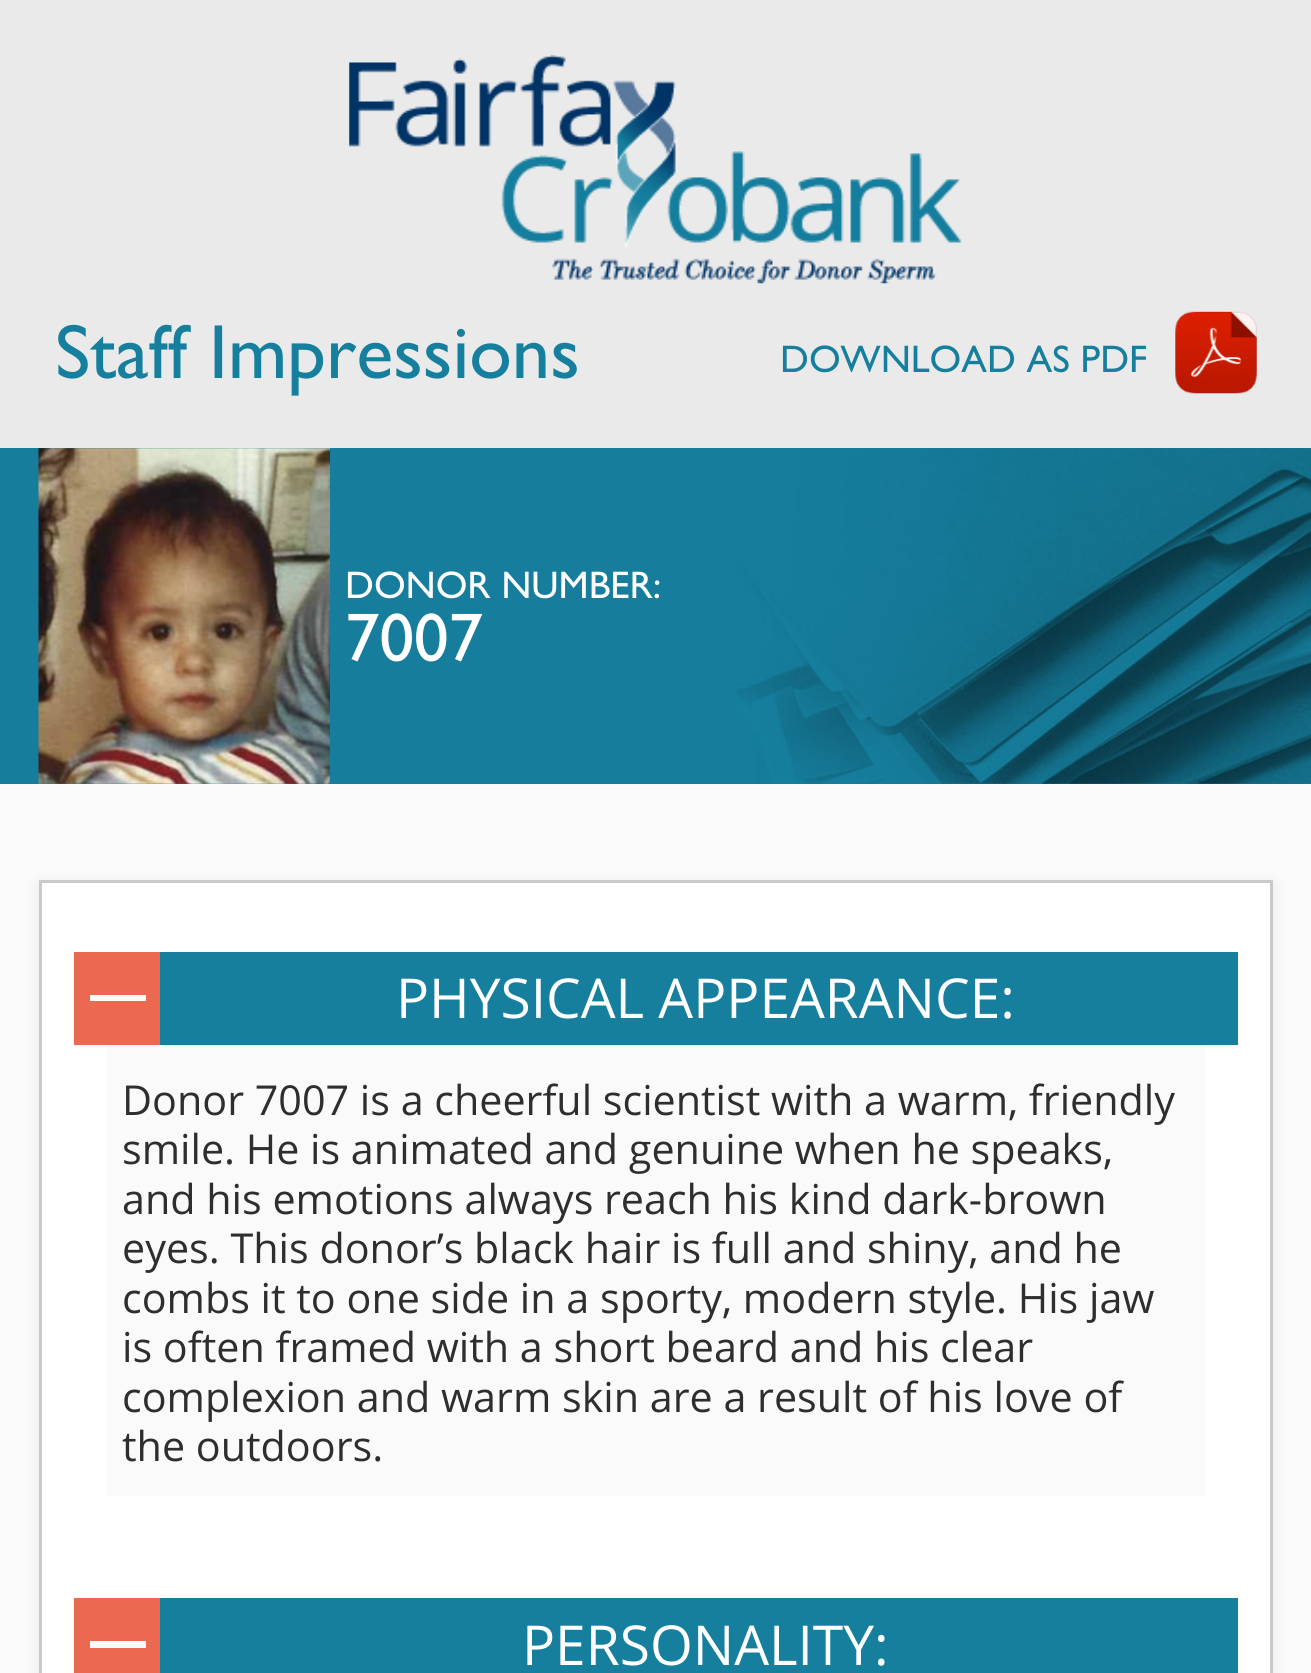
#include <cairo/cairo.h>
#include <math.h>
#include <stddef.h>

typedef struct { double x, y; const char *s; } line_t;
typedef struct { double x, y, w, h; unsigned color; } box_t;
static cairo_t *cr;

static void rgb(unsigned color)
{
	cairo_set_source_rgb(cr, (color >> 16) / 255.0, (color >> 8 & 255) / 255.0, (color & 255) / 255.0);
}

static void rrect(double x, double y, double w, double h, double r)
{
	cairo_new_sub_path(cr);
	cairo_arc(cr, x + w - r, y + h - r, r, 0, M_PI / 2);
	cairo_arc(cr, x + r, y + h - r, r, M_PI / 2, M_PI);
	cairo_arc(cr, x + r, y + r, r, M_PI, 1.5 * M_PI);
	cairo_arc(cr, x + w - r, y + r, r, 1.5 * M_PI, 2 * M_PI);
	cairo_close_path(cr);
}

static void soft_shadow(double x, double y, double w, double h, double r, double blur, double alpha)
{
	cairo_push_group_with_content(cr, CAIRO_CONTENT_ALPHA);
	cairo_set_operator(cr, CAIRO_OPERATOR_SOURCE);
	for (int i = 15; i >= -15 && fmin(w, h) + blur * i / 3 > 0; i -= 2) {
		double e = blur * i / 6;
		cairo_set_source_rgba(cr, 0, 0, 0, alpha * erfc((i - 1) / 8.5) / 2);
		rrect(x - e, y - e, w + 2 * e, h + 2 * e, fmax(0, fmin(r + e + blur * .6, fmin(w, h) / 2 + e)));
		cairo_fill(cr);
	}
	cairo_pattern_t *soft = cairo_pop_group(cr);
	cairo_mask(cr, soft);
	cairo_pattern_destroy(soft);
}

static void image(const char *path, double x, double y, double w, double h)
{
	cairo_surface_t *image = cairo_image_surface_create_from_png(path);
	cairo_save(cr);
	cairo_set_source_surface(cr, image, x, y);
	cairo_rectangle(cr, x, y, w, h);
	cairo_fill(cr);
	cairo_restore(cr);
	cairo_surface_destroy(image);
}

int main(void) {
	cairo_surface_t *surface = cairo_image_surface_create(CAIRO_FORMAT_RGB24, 1311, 1673);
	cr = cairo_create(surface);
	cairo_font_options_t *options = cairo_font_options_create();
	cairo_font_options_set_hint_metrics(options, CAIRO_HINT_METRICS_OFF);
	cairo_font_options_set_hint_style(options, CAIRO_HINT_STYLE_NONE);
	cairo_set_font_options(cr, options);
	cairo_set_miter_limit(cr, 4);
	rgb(0xeaeaea);
	cairo_paint(cr);
	image("img/1.png", 349, 55, 613, 229);
	image("img/2.png", 1175, 311, 82, 83);
	rgb(0x167d9c);
	cairo_rectangle(cr, 0, 448, 1311, 336);
	cairo_fill(cr);
	image("img/3.png", 736, 448, 575, 336);
	image("img/4.png", 38, 448, 292, 336);
	rgb(0xfafafa);
	cairo_rectangle(cr, 0, 784, 1311, 889);
	cairo_fill(cr);
	rgb(0x000000);
	soft_shadow(39, 883, 1234, 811, 0, 7, 0.07);
	rgb(0xffffff);
	cairo_rectangle(cr, 40.5, 881.5, 1231, 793);
	cairo_fill_preserve(cr);
	rgb(0xcacaca);
	cairo_set_line_width(cr, 3);
	cairo_stroke(cr);
	{
		static const box_t items[] = {
			{160, 952, 1078, 93, 0x167f9e},
			{74, 952, 86, 93, 0xea6950},
			{90, 995, 56, 6, 0xfafafa},
			{107, 1045, 1098, 451, 0xfafafa},
			{160, 1598, 1078, 75, 0x167f9e},
			{74, 1598, 86, 75, 0xea6950},
			{90, 1641, 56, 7, 0xfafafa},
		};
		for (size_t i = 0; i < sizeof items / sizeof *items; i++) {
			rgb(items[i].color);
			cairo_rectangle(cr, items[i].x, items[i].y, items[i].w, items[i].h);
			cairo_fill(cr);
		}
	}
	cairo_select_font_face(cr, "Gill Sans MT", CAIRO_FONT_SLANT_NORMAL, CAIRO_FONT_WEIGHT_NORMAL);
	cairo_set_font_size(cr, 77);
	rgb(0x167f9e);
	cairo_move_to(cr, 55, 378);
	cairo_show_text(cr, "Staff Impressions");
	cairo_set_font_size(cr, 38.5);
	cairo_move_to(cr, 780, 372);
	cairo_show_text(cr, "DOWNLOAD AS PDF");
	rgb(0xffffff);
	cairo_move_to(cr, 345, 598);
	cairo_show_text(cr, "DONOR NUMBER:");
	cairo_set_font_size(cr, 69);
	cairo_move_to(cr, 345, 661);
	cairo_show_text(cr, "7007");
	cairo_select_font_face(cr, "Open Sans", CAIRO_FONT_SLANT_NORMAL, CAIRO_FONT_WEIGHT_NORMAL);
	cairo_set_font_size(cr, 55);
	cairo_move_to(cr, 396, 1018);
	cairo_show_text(cr, "PHYSICAL APPEARANCE:");
	cairo_set_font_size(cr, 41.25);
	rgb(0x2e2e2e);
	{
		static const line_t items[] = {
			{122, 1115, "Donor 7007 is a cheerful scientist with a warm, friendly"},
			{122, 1164, "smile. He is animated and genuine when he speaks,"},
			{122, 1214, "and his emotions always reach his kind dark-brown"},
			{122, 1263, "eyes. This donor’s black hair is full and shiny, and he"},
			{122, 1313, "combs it to one side in a sporty, modern style. His jaw"},
			{122, 1362, "is often framed with a short beard and his clear"},
			{122, 1412, "complexion and warm skin are a result of his love of"},
			{122, 1461, "the outdoors."},
		};
		for (size_t i = 0; i < sizeof items / sizeof *items; i++) {
			cairo_move_to(cr, items[i].x, items[i].y);
			cairo_show_text(cr, items[i].s);
		}
	}
	cairo_set_font_size(cr, 55);
	rgb(0xffffff);
	cairo_move_to(cr, 522, 1665);
	cairo_show_text(cr, "PERSONALITY:");
	cairo_surface_write_to_png(surface, "page.png");
	cairo_font_options_destroy(options);
	cairo_destroy(cr);
	cairo_surface_destroy(surface);
	return 0;
}
